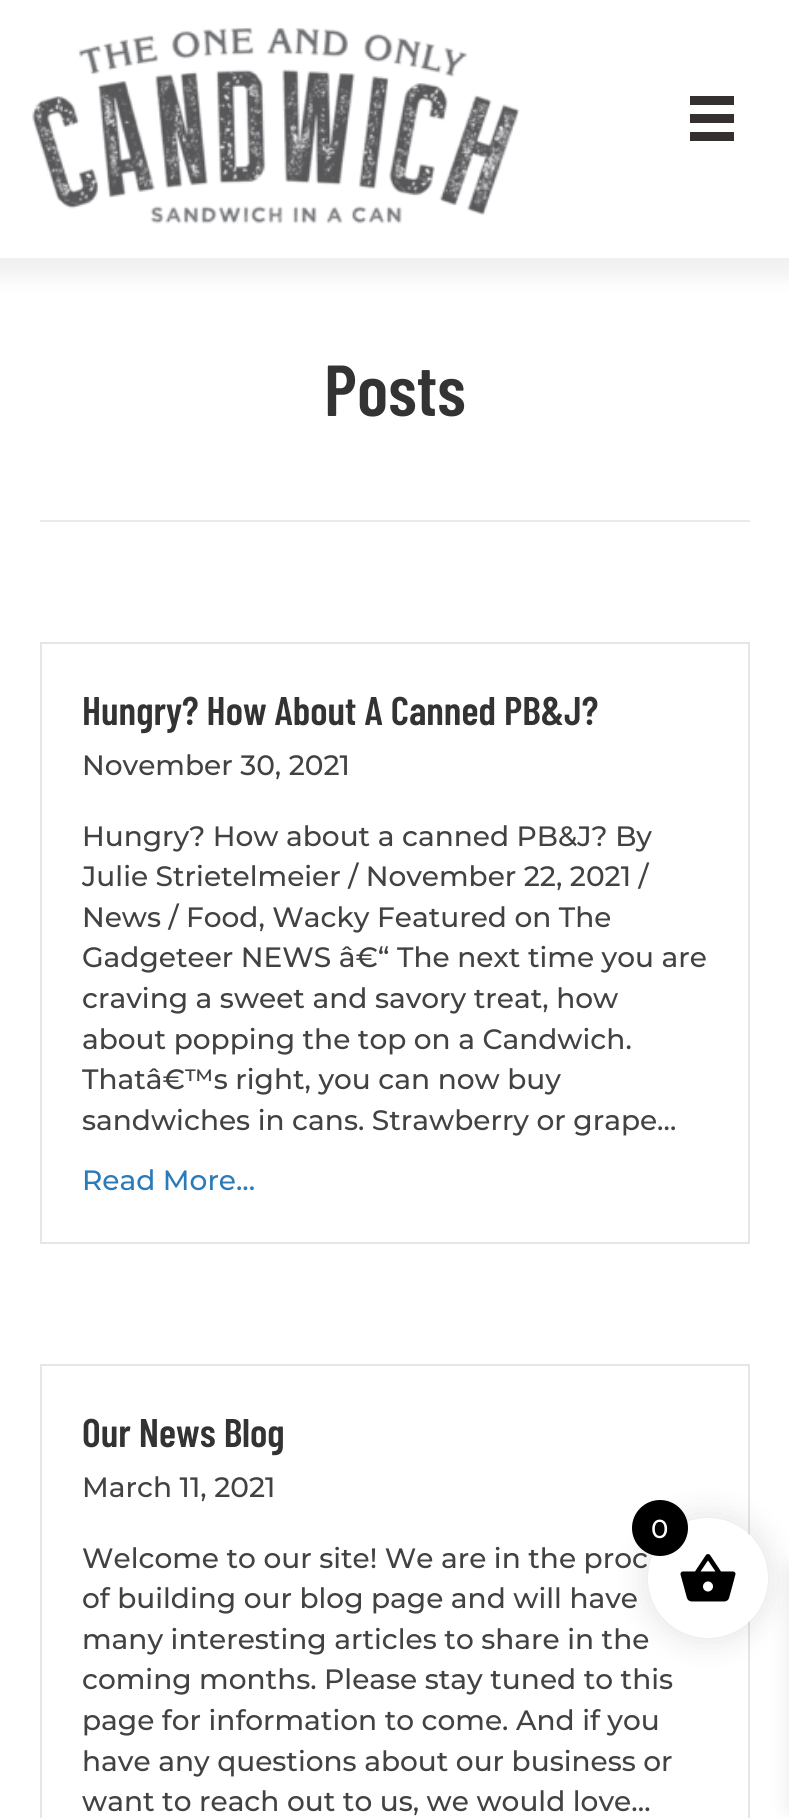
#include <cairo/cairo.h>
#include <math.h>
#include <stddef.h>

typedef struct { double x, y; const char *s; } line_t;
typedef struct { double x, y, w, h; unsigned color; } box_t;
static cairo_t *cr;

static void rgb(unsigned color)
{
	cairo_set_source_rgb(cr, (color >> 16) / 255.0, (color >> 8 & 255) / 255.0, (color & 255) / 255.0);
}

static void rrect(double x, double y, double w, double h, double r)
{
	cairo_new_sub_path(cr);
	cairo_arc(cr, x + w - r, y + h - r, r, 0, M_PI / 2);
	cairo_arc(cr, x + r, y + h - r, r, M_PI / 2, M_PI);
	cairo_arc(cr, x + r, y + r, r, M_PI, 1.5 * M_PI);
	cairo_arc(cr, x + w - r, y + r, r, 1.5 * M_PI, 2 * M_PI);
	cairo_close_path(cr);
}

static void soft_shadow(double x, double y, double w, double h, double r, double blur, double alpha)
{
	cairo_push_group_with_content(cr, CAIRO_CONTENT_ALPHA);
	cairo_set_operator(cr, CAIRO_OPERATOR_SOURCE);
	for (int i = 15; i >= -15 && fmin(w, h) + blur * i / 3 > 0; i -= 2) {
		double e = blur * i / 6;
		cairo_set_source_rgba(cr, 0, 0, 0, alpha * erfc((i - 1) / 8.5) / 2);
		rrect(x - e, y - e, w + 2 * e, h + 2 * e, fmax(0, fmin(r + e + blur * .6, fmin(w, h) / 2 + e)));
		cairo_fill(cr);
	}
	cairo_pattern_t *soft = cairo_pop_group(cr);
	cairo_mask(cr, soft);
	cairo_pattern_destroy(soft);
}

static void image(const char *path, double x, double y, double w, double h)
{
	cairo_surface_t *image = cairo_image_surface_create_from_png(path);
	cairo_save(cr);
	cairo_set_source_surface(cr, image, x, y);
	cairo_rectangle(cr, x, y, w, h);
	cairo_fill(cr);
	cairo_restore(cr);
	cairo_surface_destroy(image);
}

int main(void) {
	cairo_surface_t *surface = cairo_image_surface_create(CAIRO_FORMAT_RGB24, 789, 1818);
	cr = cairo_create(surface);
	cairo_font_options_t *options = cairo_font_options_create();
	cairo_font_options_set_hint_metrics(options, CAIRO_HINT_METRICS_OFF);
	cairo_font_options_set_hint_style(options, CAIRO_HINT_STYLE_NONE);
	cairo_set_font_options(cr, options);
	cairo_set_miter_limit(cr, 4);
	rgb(0xffffff);
	cairo_paint(cr);
	rgb(0x000000);
	soft_shadow(-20, -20, 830, 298, 0, 10, 0.06);
	rgb(0xffffff);
	cairo_rectangle(cr, 0, 0, 789, 258);
	cairo_fill(cr);
	image("img/1.png", 32, 27, 488, 197);
	{
		static const box_t items[] = {
			{690, 96, 44, 9, 0x33302f},
			{690, 114, 44, 9, 0x33302f},
			{690, 132, 44, 9, 0x33302f},
			{40, 520, 710, 2, 0xeaeaea},
		};
		for (size_t i = 0; i < sizeof items / sizeof *items; i++) {
			rgb(items[i].color);
			cairo_rectangle(cr, items[i].x, items[i].y, items[i].w, items[i].h);
			cairo_fill(cr);
		}
	}
	cairo_rectangle(cr, 41, 643, 708, 600);
	rgb(0xe6e6e6);
	cairo_stroke(cr);
	cairo_rectangle(cr, 41, 1365, 708, 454);
	cairo_stroke(cr);
	rgb(0x000000);
	soft_shadow(644, 1514, 128, 128, 64, 15, 0.1);
	soft_shadow(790, 1570, 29, 238, 0, 10, 0.1);
	cairo_select_font_face(cr, "Barlow Condensed SemiBold", CAIRO_FONT_SLANT_NORMAL, CAIRO_FONT_WEIGHT_NORMAL);
	cairo_set_font_size(cr, 72);
	rgb(0x333333);
	cairo_move_to(cr, 324, 416);
	cairo_show_text(cr, "Posts");
	cairo_set_font_size(cr, 40);
	cairo_move_to(cr, 82, 725);
	cairo_show_text(cr, "Hungry? How About A Canned PB&J?");
	cairo_select_font_face(cr, "Montserrat Medium", CAIRO_FONT_SLANT_NORMAL, CAIRO_FONT_WEIGHT_NORMAL);
	cairo_set_font_size(cr, 28);
	rgb(0x424242);
	{
		static const line_t items[] = {
			{82, 775, "November 30, 2021"},
			{82, 846, "Hungry? How about a canned PB&J? By"},
			{82, 886, "Julie Strietelmeier / November 22, 2021 /"},
			{82, 927, "News / Food, Wacky Featured on The"},
			{82, 967, "Gadgeteer NEWS â€“ The next time you are"},
			{82, 1008, "craving a sweet and savory treat, how"},
			{82, 1049, "about popping the top on a Candwich."},
			{82, 1089, "Thatâ€™s right, you can now buy"},
			{82, 1130, "sandwiches in cans. Strawberry or grape…"},
		};
		for (size_t i = 0; i < sizeof items / sizeof *items; i++) {
			cairo_move_to(cr, items[i].x, items[i].y);
			cairo_show_text(cr, items[i].s);
		}
	}
	rgb(0x2b7bb9);
	cairo_move_to(cr, 82, 1190);
	cairo_show_text(cr, "Read More...");
	cairo_select_font_face(cr, "Barlow Condensed SemiBold", CAIRO_FONT_SLANT_NORMAL, CAIRO_FONT_WEIGHT_NORMAL);
	cairo_set_font_size(cr, 40);
	rgb(0x333333);
	cairo_move_to(cr, 82, 1447);
	cairo_show_text(cr, "Our News Blog");
	cairo_select_font_face(cr, "Montserrat Medium", CAIRO_FONT_SLANT_NORMAL, CAIRO_FONT_WEIGHT_NORMAL);
	cairo_set_font_size(cr, 28);
	rgb(0x424242);
	{
		static const line_t items[] = {
			{82, 1497, "March 11, 2021"},
			{82, 1568, "Welcome to our site! We are in the proc"},
			{82, 1608, "of building our blog page and will have"},
			{82, 1649, "many interesting articles to share in the"},
			{82, 1689, "coming months. Please stay tuned to this"},
			{82, 1730, "page for information to come. And if you"},
			{82, 1771, "have any questions about our business or"},
			{82, 1811, "want to reach out to us, we would love…"},
		};
		for (size_t i = 0; i < sizeof items / sizeof *items; i++) {
			cairo_move_to(cr, items[i].x, items[i].y);
			cairo_show_text(cr, items[i].s);
		}
	}
	rgb(0xffffff);
	cairo_new_path(cr);
	cairo_arc(cr, 708, 1578, 60, 0, 2 * M_PI);
	cairo_fill(cr);
	image("img/2.png", 680, 1554, 56, 48);
	rgb(0x000000);
	cairo_arc(cr, 660, 1528, 28, 0, 2 * M_PI);
	cairo_fill(cr);
	cairo_set_font_size(cr, 26);
	rgb(0xffffff);
	cairo_move_to(cr, 651, 1538);
	cairo_show_text(cr, "0");
	cairo_surface_write_to_png(surface, "page.png");
	cairo_font_options_destroy(options);
	cairo_destroy(cr);
	cairo_surface_destroy(surface);
	return 0;
}
